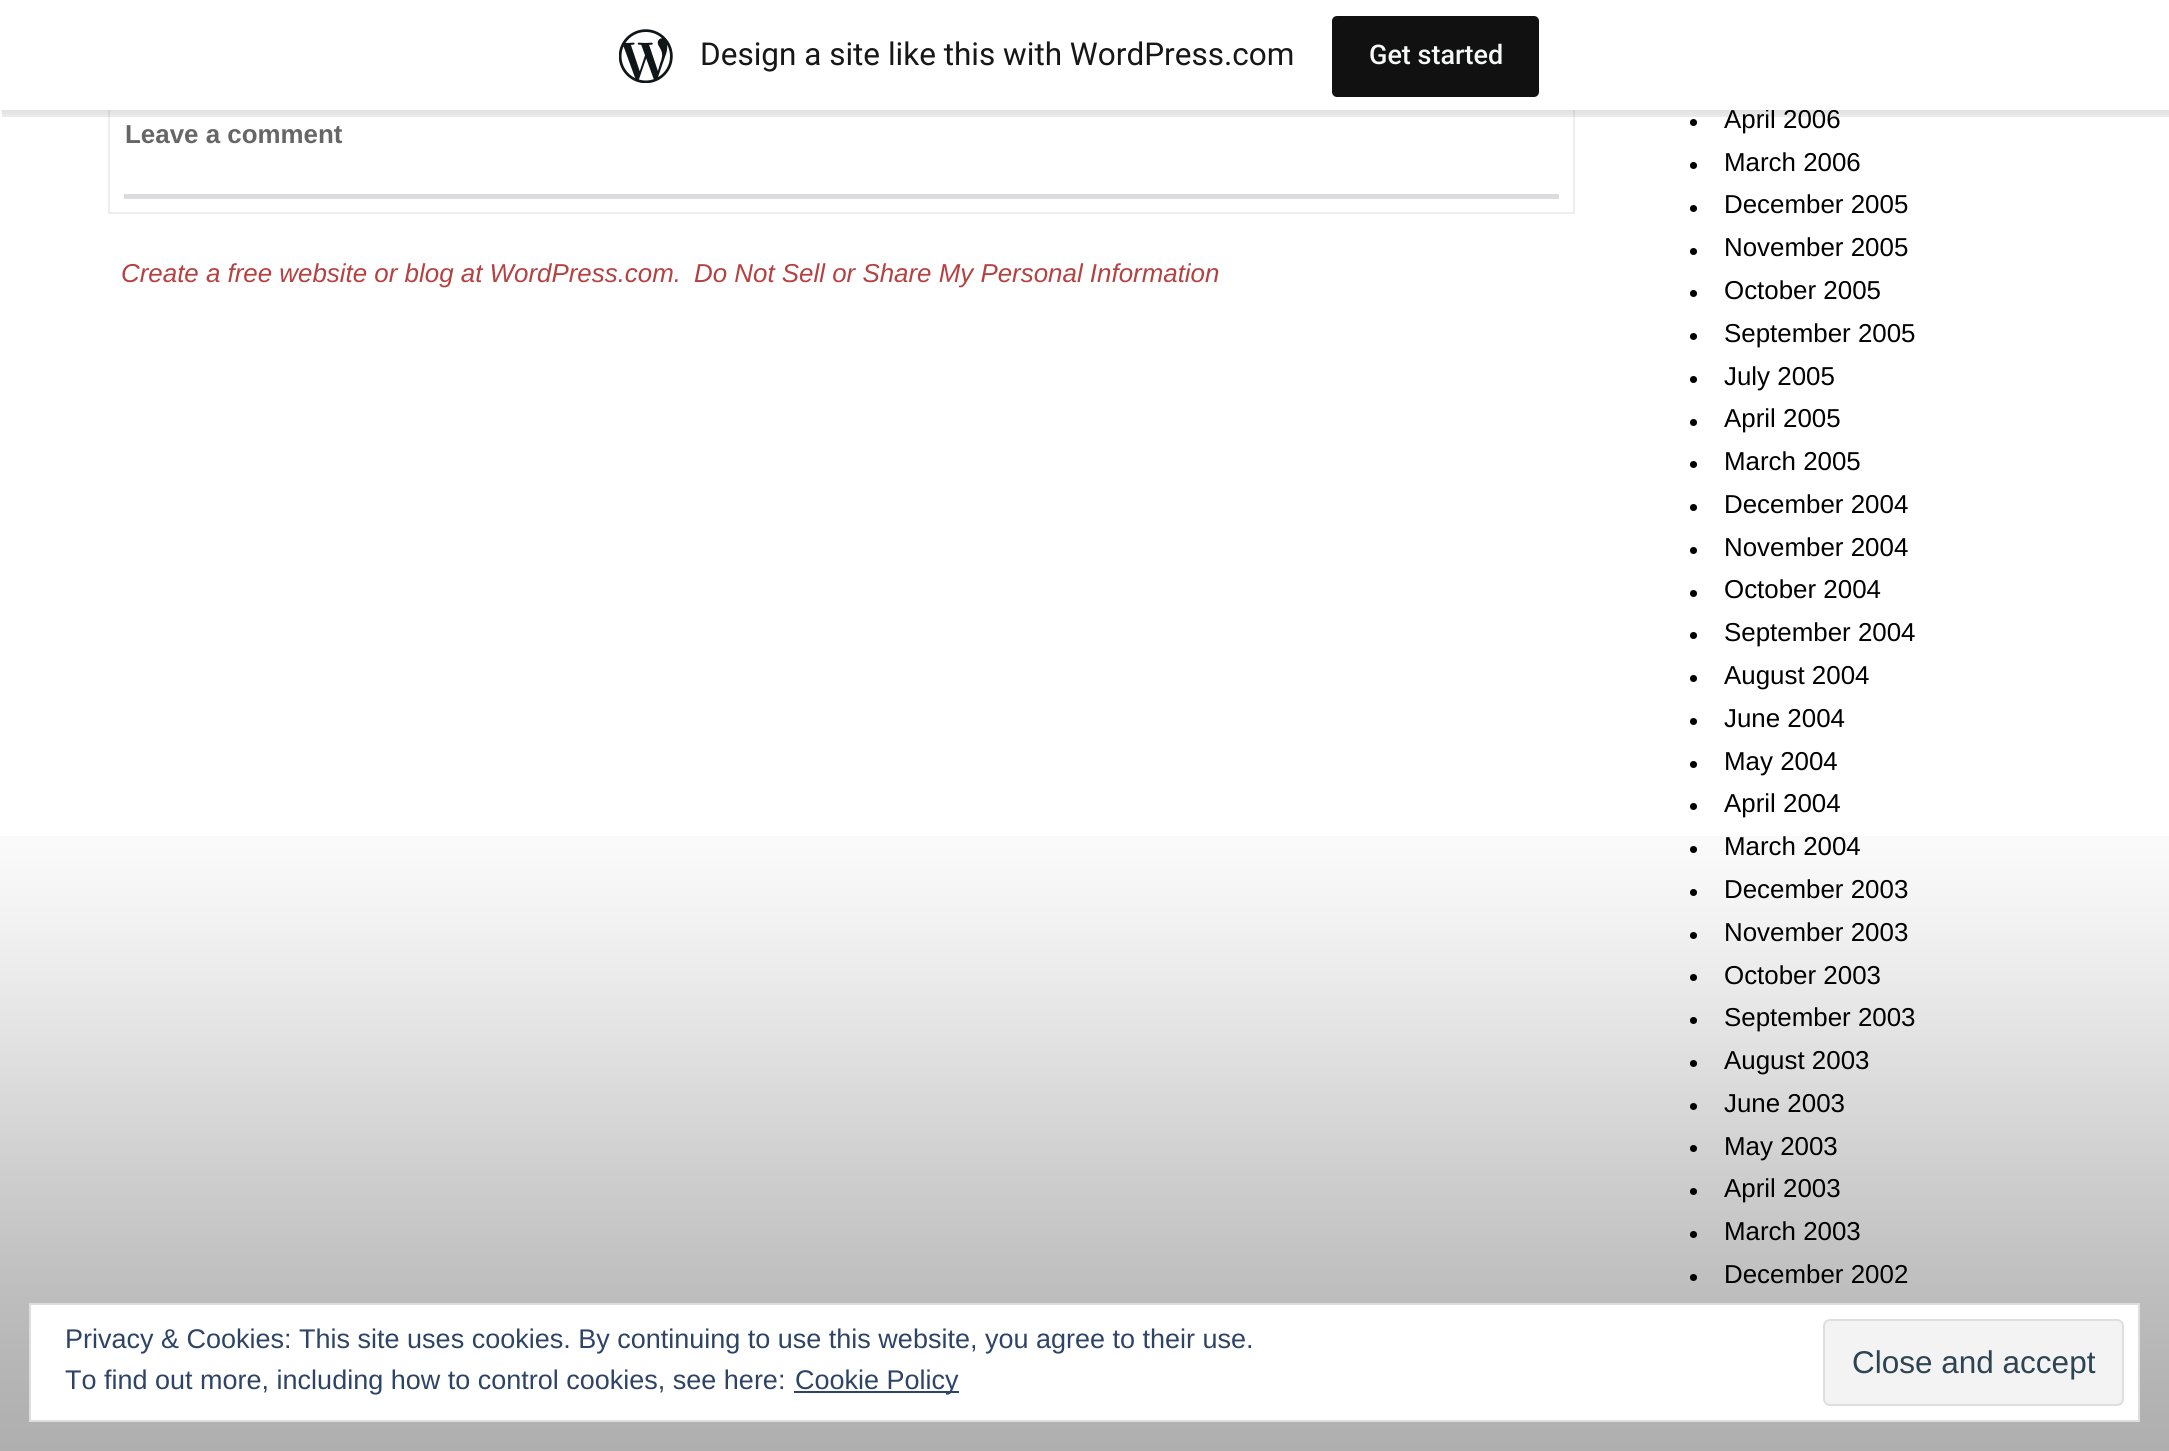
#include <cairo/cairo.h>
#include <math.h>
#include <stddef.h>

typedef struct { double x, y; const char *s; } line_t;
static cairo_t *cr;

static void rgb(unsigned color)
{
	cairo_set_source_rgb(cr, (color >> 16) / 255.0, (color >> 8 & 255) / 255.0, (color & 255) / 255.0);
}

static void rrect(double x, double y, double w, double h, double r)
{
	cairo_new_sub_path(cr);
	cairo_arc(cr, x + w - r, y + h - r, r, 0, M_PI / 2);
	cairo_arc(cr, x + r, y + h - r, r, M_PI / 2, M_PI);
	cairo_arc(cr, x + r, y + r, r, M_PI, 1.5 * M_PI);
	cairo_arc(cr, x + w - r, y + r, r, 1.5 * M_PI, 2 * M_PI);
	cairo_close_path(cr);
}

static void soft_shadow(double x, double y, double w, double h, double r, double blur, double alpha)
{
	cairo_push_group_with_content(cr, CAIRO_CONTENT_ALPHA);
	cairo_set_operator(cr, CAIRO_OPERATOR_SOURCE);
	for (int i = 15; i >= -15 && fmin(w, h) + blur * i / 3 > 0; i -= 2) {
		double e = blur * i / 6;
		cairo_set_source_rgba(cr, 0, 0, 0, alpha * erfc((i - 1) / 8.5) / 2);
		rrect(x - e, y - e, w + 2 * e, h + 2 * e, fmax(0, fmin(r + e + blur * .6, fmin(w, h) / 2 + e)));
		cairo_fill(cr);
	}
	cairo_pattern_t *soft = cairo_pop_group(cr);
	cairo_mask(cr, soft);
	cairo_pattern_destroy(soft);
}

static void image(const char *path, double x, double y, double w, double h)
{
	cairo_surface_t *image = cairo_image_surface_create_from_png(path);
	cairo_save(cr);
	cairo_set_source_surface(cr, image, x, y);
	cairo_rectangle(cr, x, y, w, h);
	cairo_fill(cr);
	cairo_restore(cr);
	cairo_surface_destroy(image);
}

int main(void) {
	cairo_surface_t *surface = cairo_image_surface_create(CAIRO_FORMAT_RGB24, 2169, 1451);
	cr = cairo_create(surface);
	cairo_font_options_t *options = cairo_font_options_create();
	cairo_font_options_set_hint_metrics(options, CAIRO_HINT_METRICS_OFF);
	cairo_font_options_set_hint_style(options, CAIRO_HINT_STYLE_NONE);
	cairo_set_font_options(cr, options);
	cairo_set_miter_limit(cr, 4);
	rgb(0xffffff);
	cairo_paint(cr);
	image("img/1.png", 0, 836, 2169, 615);
	cairo_rectangle(cr, 109, -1, 1465, 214);
	rgb(0xeeeeee);
	cairo_stroke(cr);
	rgb(0x000000);
	cairo_arc(cr, 1693.5, 122.5, 3.5, 0, 2 * M_PI);
	cairo_fill(cr);
	rgb(0x000000);
	soft_shadow(0, 2, 2169, 111, 0, 2, 0.05);
	cairo_set_source_rgba(cr, 0, 0, 0, 0.08);
	cairo_new_path(cr);
	cairo_move_to(cr, 2, 110);
	cairo_line_to(cr, 2, 117);
	cairo_line_to(cr, 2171, 117);
	cairo_line_to(cr, 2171, 7);
	cairo_line_to(cr, 2169, 7);
	cairo_line_to(cr, 2169, 110);
	cairo_close_path(cr);
	cairo_fill(cr);
	rgb(0xdcdcde);
	cairo_rectangle(cr, 124, 194, 1435, 5);
	cairo_fill(cr);
	rgb(0x000000);
	cairo_arc(cr, 1693.5, 165.5, 3.5, 0, 2 * M_PI);
	cairo_fill(cr);
	cairo_arc(cr, 1693.5, 208.5, 3.5, 0, 2 * M_PI);
	cairo_fill(cr);
	cairo_arc(cr, 1693.5, 251.5, 3.5, 0, 2 * M_PI);
	cairo_fill(cr);
	cairo_arc(cr, 1693.5, 293.5, 3.5, 0, 2 * M_PI);
	cairo_fill(cr);
	cairo_arc(cr, 1693.5, 336.5, 3.5, 0, 2 * M_PI);
	cairo_fill(cr);
	cairo_arc(cr, 1693.5, 379.5, 3.5, 0, 2 * M_PI);
	cairo_fill(cr);
	cairo_arc(cr, 1693.5, 422.5, 3.5, 0, 2 * M_PI);
	cairo_fill(cr);
	cairo_arc(cr, 1693.5, 464.5, 3.5, 0, 2 * M_PI);
	cairo_fill(cr);
	cairo_arc(cr, 1693.5, 507.5, 3.5, 0, 2 * M_PI);
	cairo_fill(cr);
	cairo_arc(cr, 1693.5, 550.5, 3.5, 0, 2 * M_PI);
	cairo_fill(cr);
	cairo_arc(cr, 1693.5, 593.5, 3.5, 0, 2 * M_PI);
	cairo_fill(cr);
	cairo_arc(cr, 1693.5, 635.5, 3.5, 0, 2 * M_PI);
	cairo_fill(cr);
	cairo_arc(cr, 1693.5, 678.5, 3.5, 0, 2 * M_PI);
	cairo_fill(cr);
	cairo_arc(cr, 1693.5, 721.5, 3.5, 0, 2 * M_PI);
	cairo_fill(cr);
	cairo_arc(cr, 1693.5, 764.5, 3.5, 0, 2 * M_PI);
	cairo_fill(cr);
	cairo_arc(cr, 1693.5, 806.5, 3.5, 0, 2 * M_PI);
	cairo_fill(cr);
	cairo_arc(cr, 1693.5, 849.5, 3.5, 0, 2 * M_PI);
	cairo_fill(cr);
	cairo_arc(cr, 1693.5, 892.5, 3.5, 0, 2 * M_PI);
	cairo_fill(cr);
	cairo_arc(cr, 1693.5, 935.5, 3.5, 0, 2 * M_PI);
	cairo_fill(cr);
	cairo_arc(cr, 1693.5, 977.5, 3.5, 0, 2 * M_PI);
	cairo_fill(cr);
	cairo_arc(cr, 1693.5, 1020.5, 3.5, 0, 2 * M_PI);
	cairo_fill(cr);
	cairo_arc(cr, 1693.5, 1063.5, 3.5, 0, 2 * M_PI);
	cairo_fill(cr);
	cairo_arc(cr, 1693.5, 1106.5, 3.5, 0, 2 * M_PI);
	cairo_fill(cr);
	cairo_arc(cr, 1693.5, 1148.5, 3.5, 0, 2 * M_PI);
	cairo_fill(cr);
	cairo_arc(cr, 1693.5, 1191.5, 3.5, 0, 2 * M_PI);
	cairo_fill(cr);
	cairo_arc(cr, 1693.5, 1234.5, 3.5, 0, 2 * M_PI);
	cairo_fill(cr);
	cairo_arc(cr, 1693.5, 1277.5, 3.5, 0, 2 * M_PI);
	cairo_fill(cr);
	rgb(0xffffff);
	cairo_rectangle(cr, 30, 1304, 2109, 117);
	cairo_fill_preserve(cr);
	rgb(0xdedede);
	cairo_stroke(cr);
	rgb(0x2e4467);
	cairo_rectangle(cr, 794, 1391, 165, 2);
	cairo_fill(cr);
	rgb(0xf3f3f3);
	rrect(1824, 1320, 299, 85, 6);
	cairo_fill_preserve(cr);
	rgb(0xdedede);
	cairo_stroke(cr);
	cairo_select_font_face(cr, "Liberation Sans", CAIRO_FONT_SLANT_NORMAL, CAIRO_FONT_WEIGHT_BOLD);
	cairo_set_font_size(cr, 25.9);
	rgb(0x666666);
	cairo_move_to(cr, 125, 143);
	cairo_show_text(cr, "Leave a comment");
	cairo_select_font_face(cr, "Liberation Sans", CAIRO_FONT_SLANT_NORMAL, CAIRO_FONT_WEIGHT_NORMAL);
	rgb(0x000000);
	cairo_move_to(cr, 1724, 128);
	cairo_show_text(cr, "April 2006");
	rgb(0xffffff);
	cairo_rectangle(cr, 0, 0, 2169, 110);
	cairo_fill(cr);
	image("img/2.png", 619, 29, 54, 54);
	cairo_select_font_face(cr, "Roboto", CAIRO_FONT_SLANT_NORMAL, CAIRO_FONT_WEIGHT_NORMAL);
	cairo_set_font_size(cr, 31.5);
	rgb(0x171717);
	cairo_move_to(cr, 700, 65);
	cairo_show_text(cr, "Design a site like this with WordPress.com");
	rgb(0x111111);
	rrect(1331, 15, 209, 83, 6);
	cairo_fill_preserve(cr);
	rgb(0xffffff);
	cairo_stroke(cr);
	cairo_select_font_face(cr, "Roboto Medium", CAIRO_FONT_SLANT_NORMAL, CAIRO_FONT_WEIGHT_NORMAL);
	cairo_set_font_size(cr, 27);
	rgb(0xf6f7f7);
	cairo_move_to(cr, 1369, 64);
	cairo_show_text(cr, "Get started");
	cairo_select_font_face(cr, "Liberation Sans", CAIRO_FONT_SLANT_NORMAL, CAIRO_FONT_WEIGHT_NORMAL);
	cairo_set_font_size(cr, 25.9);
	rgb(0x000000);
	{
		static const line_t items[] = {
			{1724, 171, "March 2006"},
			{1724, 213, "December 2005"},
			{1724, 256, "November 2005"},
			{1724, 299, "October 2005"},
			{1724, 342, "September 2005"},
			{1724, 385, "July 2005"},
			{1724, 427, "April 2005"},
			{1724, 470, "March 2005"},
			{1724, 513, "December 2004"},
			{1724, 556, "November 2004"},
			{1724, 598, "October 2004"},
			{1724, 641, "September 2004"},
			{1724, 684, "August 2004"},
			{1724, 727, "June 2004"},
			{1724, 770, "May 2004"},
			{1724, 812, "April 2004"},
			{1724, 855, "March 2004"},
			{1724, 898, "December 2003"},
			{1724, 941, "November 2003"},
			{1724, 984, "October 2003"},
			{1724, 1026, "September 2003"},
			{1724, 1069, "August 2003"},
			{1724, 1112, "June 2003"},
			{1724, 1155, "May 2003"},
			{1724, 1197, "April 2003"},
			{1724, 1240, "March 2003"},
			{1724, 1283, "December 2002"},
		};
		for (size_t i = 0; i < sizeof items / sizeof *items; i++) {
			cairo_move_to(cr, items[i].x, items[i].y);
			cairo_show_text(cr, items[i].s);
		}
	}
	cairo_select_font_face(cr, "Liberation Sans", CAIRO_FONT_SLANT_ITALIC, CAIRO_FONT_WEIGHT_NORMAL);
	rgb(0xb54141);
	cairo_move_to(cr, 121, 282);
	cairo_show_text(cr, "Create a free website or blog at WordPress.com.");
	cairo_move_to(cr, 694, 282);
	cairo_show_text(cr, "Do Not Sell or Share My Personal Information");
	cairo_select_font_face(cr, "Liberation Sans", CAIRO_FONT_SLANT_NORMAL, CAIRO_FONT_WEIGHT_NORMAL);
	cairo_set_font_size(cr, 27);
	rgb(0x2e4467);
	{
		static const line_t items[] = {
			{65, 1348, "Privacy & Cookies: This site uses cookies. By continuing to use this website, you agree to their use."},
			{65, 1389, "To find out more, including how to control cookies, see here:"},
			{795, 1389, "Cookie Policy"},
		};
		for (size_t i = 0; i < sizeof items / sizeof *items; i++) {
			cairo_move_to(cr, items[i].x, items[i].y);
			cairo_show_text(cr, items[i].s);
		}
	}
	cairo_set_font_size(cr, 31.5);
	rgb(0x2e4453);
	cairo_move_to(cr, 1852, 1373);
	cairo_show_text(cr, "Close and accept");
	cairo_surface_write_to_png(surface, "page.png");
	cairo_font_options_destroy(options);
	cairo_destroy(cr);
	cairo_surface_destroy(surface);
	return 0;
}
